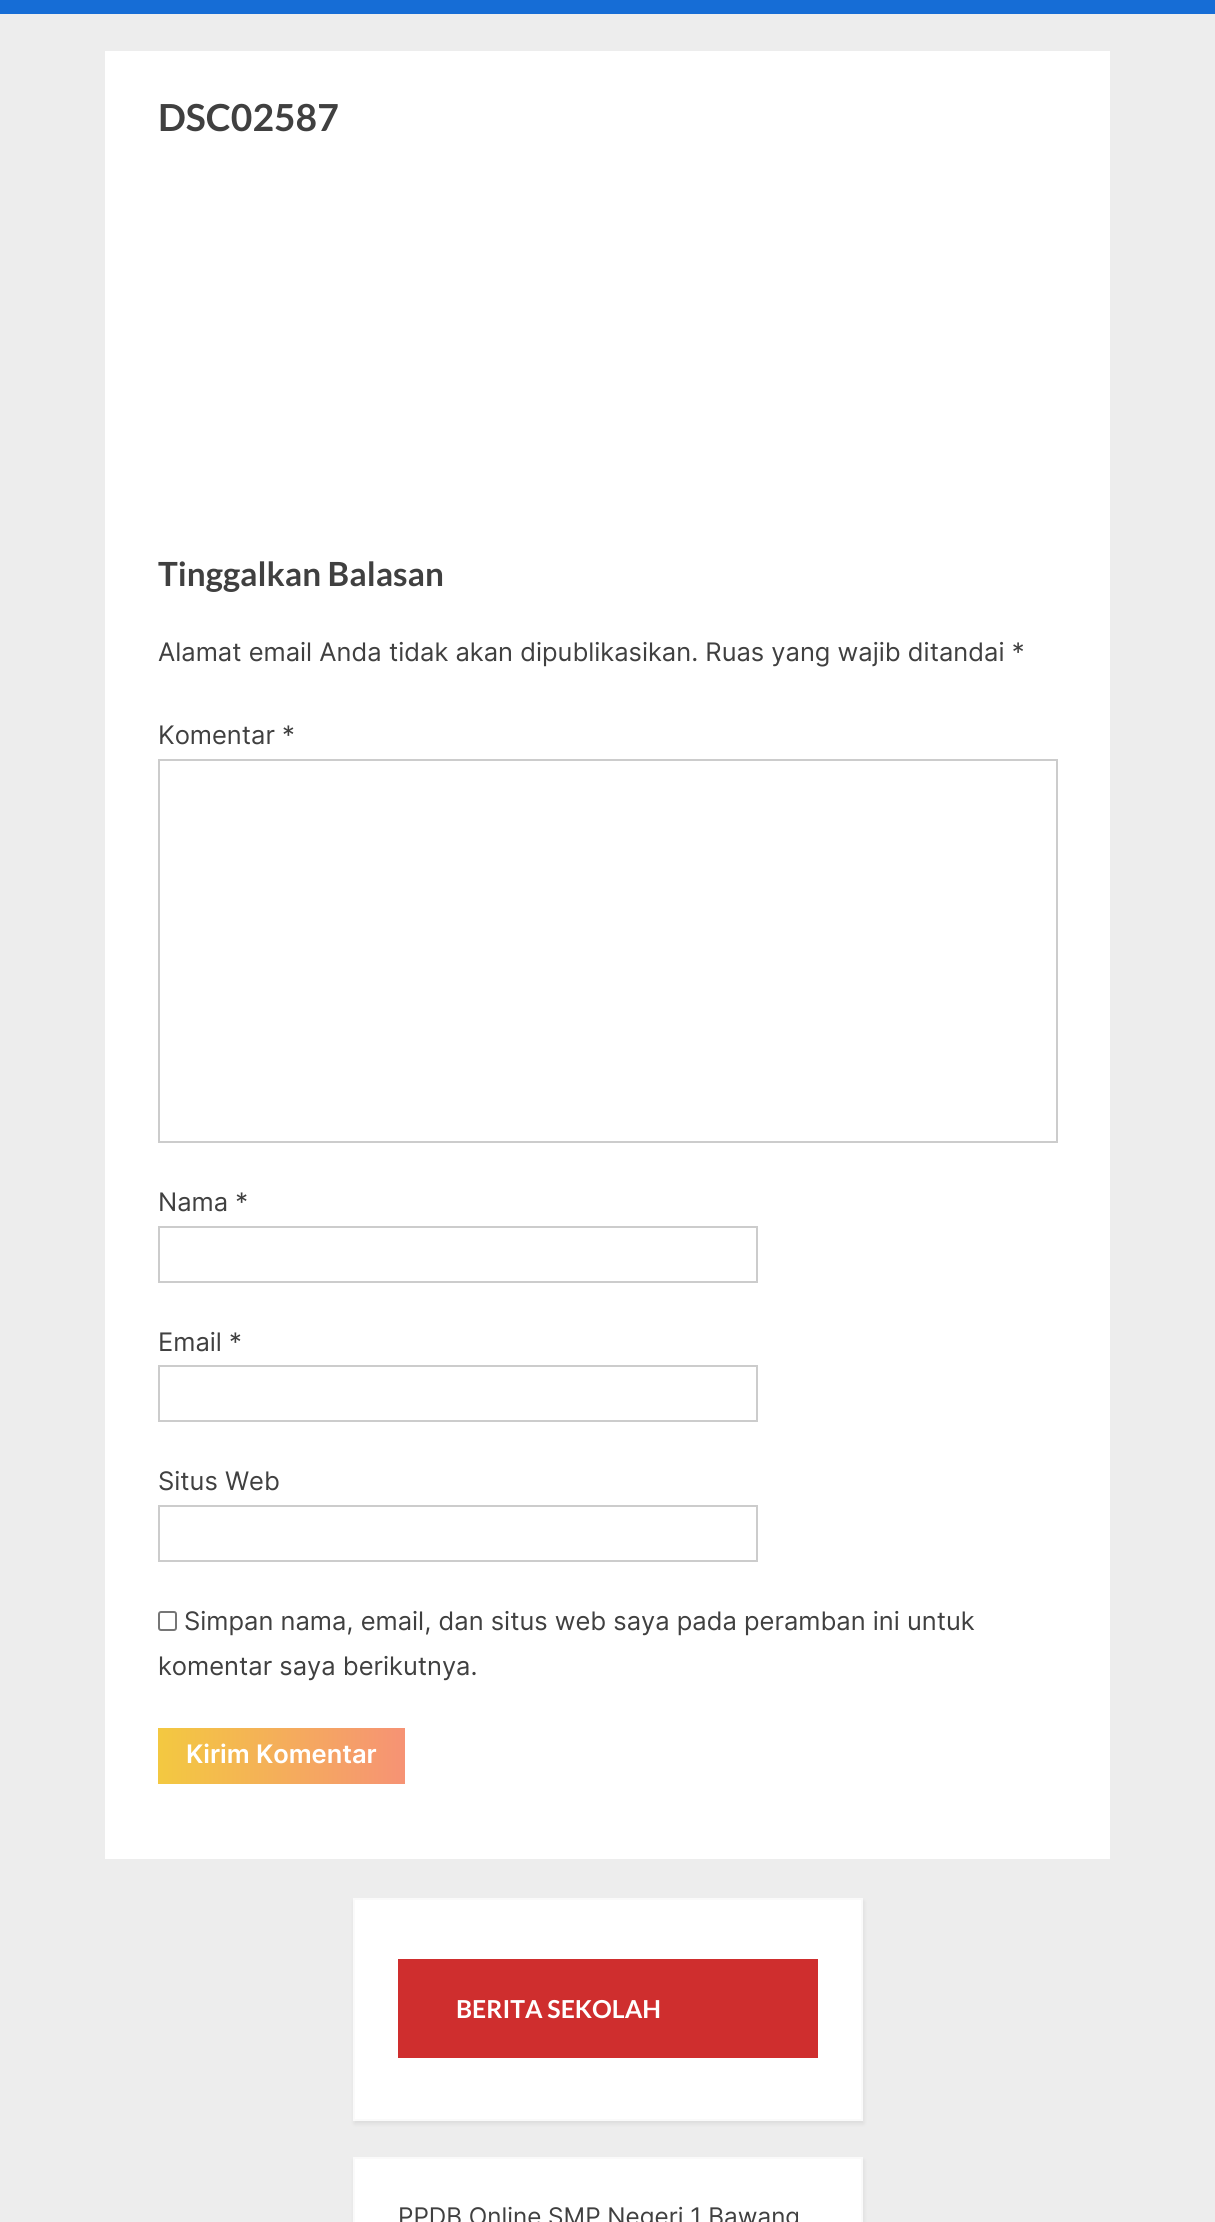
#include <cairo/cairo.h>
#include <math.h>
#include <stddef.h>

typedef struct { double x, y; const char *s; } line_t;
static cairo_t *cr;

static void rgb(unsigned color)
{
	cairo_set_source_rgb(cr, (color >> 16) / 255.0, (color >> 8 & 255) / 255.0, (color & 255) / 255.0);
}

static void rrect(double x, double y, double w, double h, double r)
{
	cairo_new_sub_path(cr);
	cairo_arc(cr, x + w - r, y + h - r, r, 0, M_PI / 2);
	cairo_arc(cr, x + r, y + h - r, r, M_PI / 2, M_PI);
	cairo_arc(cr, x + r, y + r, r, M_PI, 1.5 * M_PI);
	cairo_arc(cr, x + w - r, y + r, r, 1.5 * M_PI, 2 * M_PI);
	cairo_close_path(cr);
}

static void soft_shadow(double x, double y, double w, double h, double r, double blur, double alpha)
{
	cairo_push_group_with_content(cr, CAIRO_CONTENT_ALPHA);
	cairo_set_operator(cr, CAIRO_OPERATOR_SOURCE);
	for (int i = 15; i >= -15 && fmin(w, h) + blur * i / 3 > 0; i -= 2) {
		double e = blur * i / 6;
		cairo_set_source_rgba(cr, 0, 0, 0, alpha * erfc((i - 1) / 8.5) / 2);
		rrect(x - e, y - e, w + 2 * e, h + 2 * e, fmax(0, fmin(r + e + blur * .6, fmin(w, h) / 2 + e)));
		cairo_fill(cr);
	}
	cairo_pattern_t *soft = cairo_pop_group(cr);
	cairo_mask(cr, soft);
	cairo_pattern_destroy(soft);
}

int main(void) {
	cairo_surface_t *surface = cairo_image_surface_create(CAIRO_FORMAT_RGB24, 1215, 2222);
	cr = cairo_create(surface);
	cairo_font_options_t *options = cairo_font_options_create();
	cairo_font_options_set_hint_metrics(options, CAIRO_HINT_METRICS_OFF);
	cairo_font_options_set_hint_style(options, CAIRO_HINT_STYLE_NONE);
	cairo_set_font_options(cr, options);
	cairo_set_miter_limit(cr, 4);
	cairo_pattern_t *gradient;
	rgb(0xededed);
	cairo_paint(cr);
	rgb(0x166dd6);
	cairo_rectangle(cr, 0, 0, 1215, 14);
	cairo_fill(cr);
	rgb(0xffffff);
	cairo_rectangle(cr, 105, 51, 1005, 1808);
	cairo_fill(cr);
	cairo_rectangle(cr, 159, 760, 898, 382);
	rgb(0xcccccc);
	cairo_stroke(cr);
	cairo_rectangle(cr, 159, 1227, 598, 55);
	cairo_stroke(cr);
	cairo_rectangle(cr, 159, 1366, 598, 55);
	cairo_stroke(cr);
	cairo_rectangle(cr, 159, 1506, 598, 55);
	cairo_stroke(cr);
	rrect(159, 1612, 17, 18, 2);
	rgb(0x767676);
	cairo_stroke(cr);
	gradient = cairo_pattern_create_linear(-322, 1756, 161, 1756);
	cairo_pattern_add_color_stop_rgba(gradient, 0, 0.953, 0.784, 0.255, 1);
	cairo_pattern_add_color_stop_rgba(gradient, 0.51, 0.965, 0.573, 0.459, 1);
	cairo_pattern_add_color_stop_rgba(gradient, 1, 0.953, 0.784, 0.255, 1);
	cairo_set_source(cr, gradient);
	cairo_pattern_destroy(gradient);
	cairo_rectangle(cr, 158, 1728, 3, 56);
	cairo_fill(cr);
	gradient = cairo_pattern_create_linear(161, 1756, 644, 1756);
	cairo_pattern_add_color_stop_rgba(gradient, 0, 0.953, 0.784, 0.255, 1);
	cairo_pattern_add_color_stop_rgba(gradient, 0.51, 0.965, 0.573, 0.459, 1);
	cairo_pattern_add_color_stop_rgba(gradient, 1, 0.953, 0.784, 0.255, 1);
	cairo_set_source(cr, gradient);
	cairo_pattern_destroy(gradient);
	cairo_rectangle(cr, 161, 1728, 244, 56);
	cairo_fill(cr);
	rgb(0x000000);
	soft_shadow(354, 1901, 510, 223, 0, 2, 0.07);
	rgb(0xffffff);
	cairo_rectangle(cr, 354, 1899, 508, 221);
	cairo_fill_preserve(cr);
	rgb(0xfafafa);
	cairo_stroke(cr);
	rgb(0xcf2e2e);
	cairo_rectangle(cr, 398, 1959, 420, 99);
	cairo_fill(cr);
	rgb(0x000000);
	soft_shadow(354, 2160, 510, 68, 0, 2, 0.07);
	rgb(0xffffff);
	cairo_rectangle(cr, 354, 2158, 508, 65);
	cairo_fill_preserve(cr);
	rgb(0xfafafa);
	cairo_stroke(cr);
	cairo_select_font_face(cr, "Lato", CAIRO_FONT_SLANT_NORMAL, CAIRO_FONT_WEIGHT_BOLD);
	cairo_set_font_size(cr, 37.25);
	rgb(0x404040);
	cairo_move_to(cr, 158, 131);
	cairo_show_text(cr, "DSC02587");
	cairo_set_font_size(cr, 33.25);
	cairo_move_to(cr, 158, 586);
	cairo_show_text(cr, "Tinggalkan Balasan");
	cairo_select_font_face(cr, "Inter", CAIRO_FONT_SLANT_NORMAL, CAIRO_FONT_WEIGHT_NORMAL);
	cairo_set_font_size(cr, 25.5);
	{
		static const line_t items[] = {
			{158, 661, "Alamat email Anda tidak akan dipublikasikan. Ruas yang wajib ditandai *"},
			{158, 744, "Komentar *"},
			{158, 1211, "Nama *"},
			{158, 1351, "Email *"},
			{158, 1490, "Situs Web"},
			{184, 1630, "Simpan nama, email, dan situs web saya pada peramban ini untuk"},
			{158, 1675, "komentar saya berikutnya."},
		};
		for (size_t i = 0; i < sizeof items / sizeof *items; i++) {
			cairo_move_to(cr, items[i].x, items[i].y);
			cairo_show_text(cr, items[i].s);
		}
	}
	cairo_select_font_face(cr, "Inter SemiBold", CAIRO_FONT_SLANT_NORMAL, CAIRO_FONT_WEIGHT_NORMAL);
	rgb(0xffffff);
	cairo_move_to(cr, 186, 1763);
	cairo_show_text(cr, "Kirim Komentar");
	cairo_select_font_face(cr, "Lato", CAIRO_FONT_SLANT_NORMAL, CAIRO_FONT_WEIGHT_BOLD);
	cairo_set_font_size(cr, 24.75);
	cairo_move_to(cr, 456, 2018);
	cairo_show_text(cr, "BERITA SEKOLAH");
	cairo_select_font_face(cr, "Inter", CAIRO_FONT_SLANT_NORMAL, CAIRO_FONT_WEIGHT_NORMAL);
	cairo_set_font_size(cr, 24.25);
	rgb(0x404040);
	cairo_move_to(cr, 398, 2225);
	cairo_show_text(cr, "PPDB Online SMP Negeri 1 Bawang");
	cairo_surface_write_to_png(surface, "page.png");
	cairo_font_options_destroy(options);
	cairo_destroy(cr);
	cairo_surface_destroy(surface);
	return 0;
}
